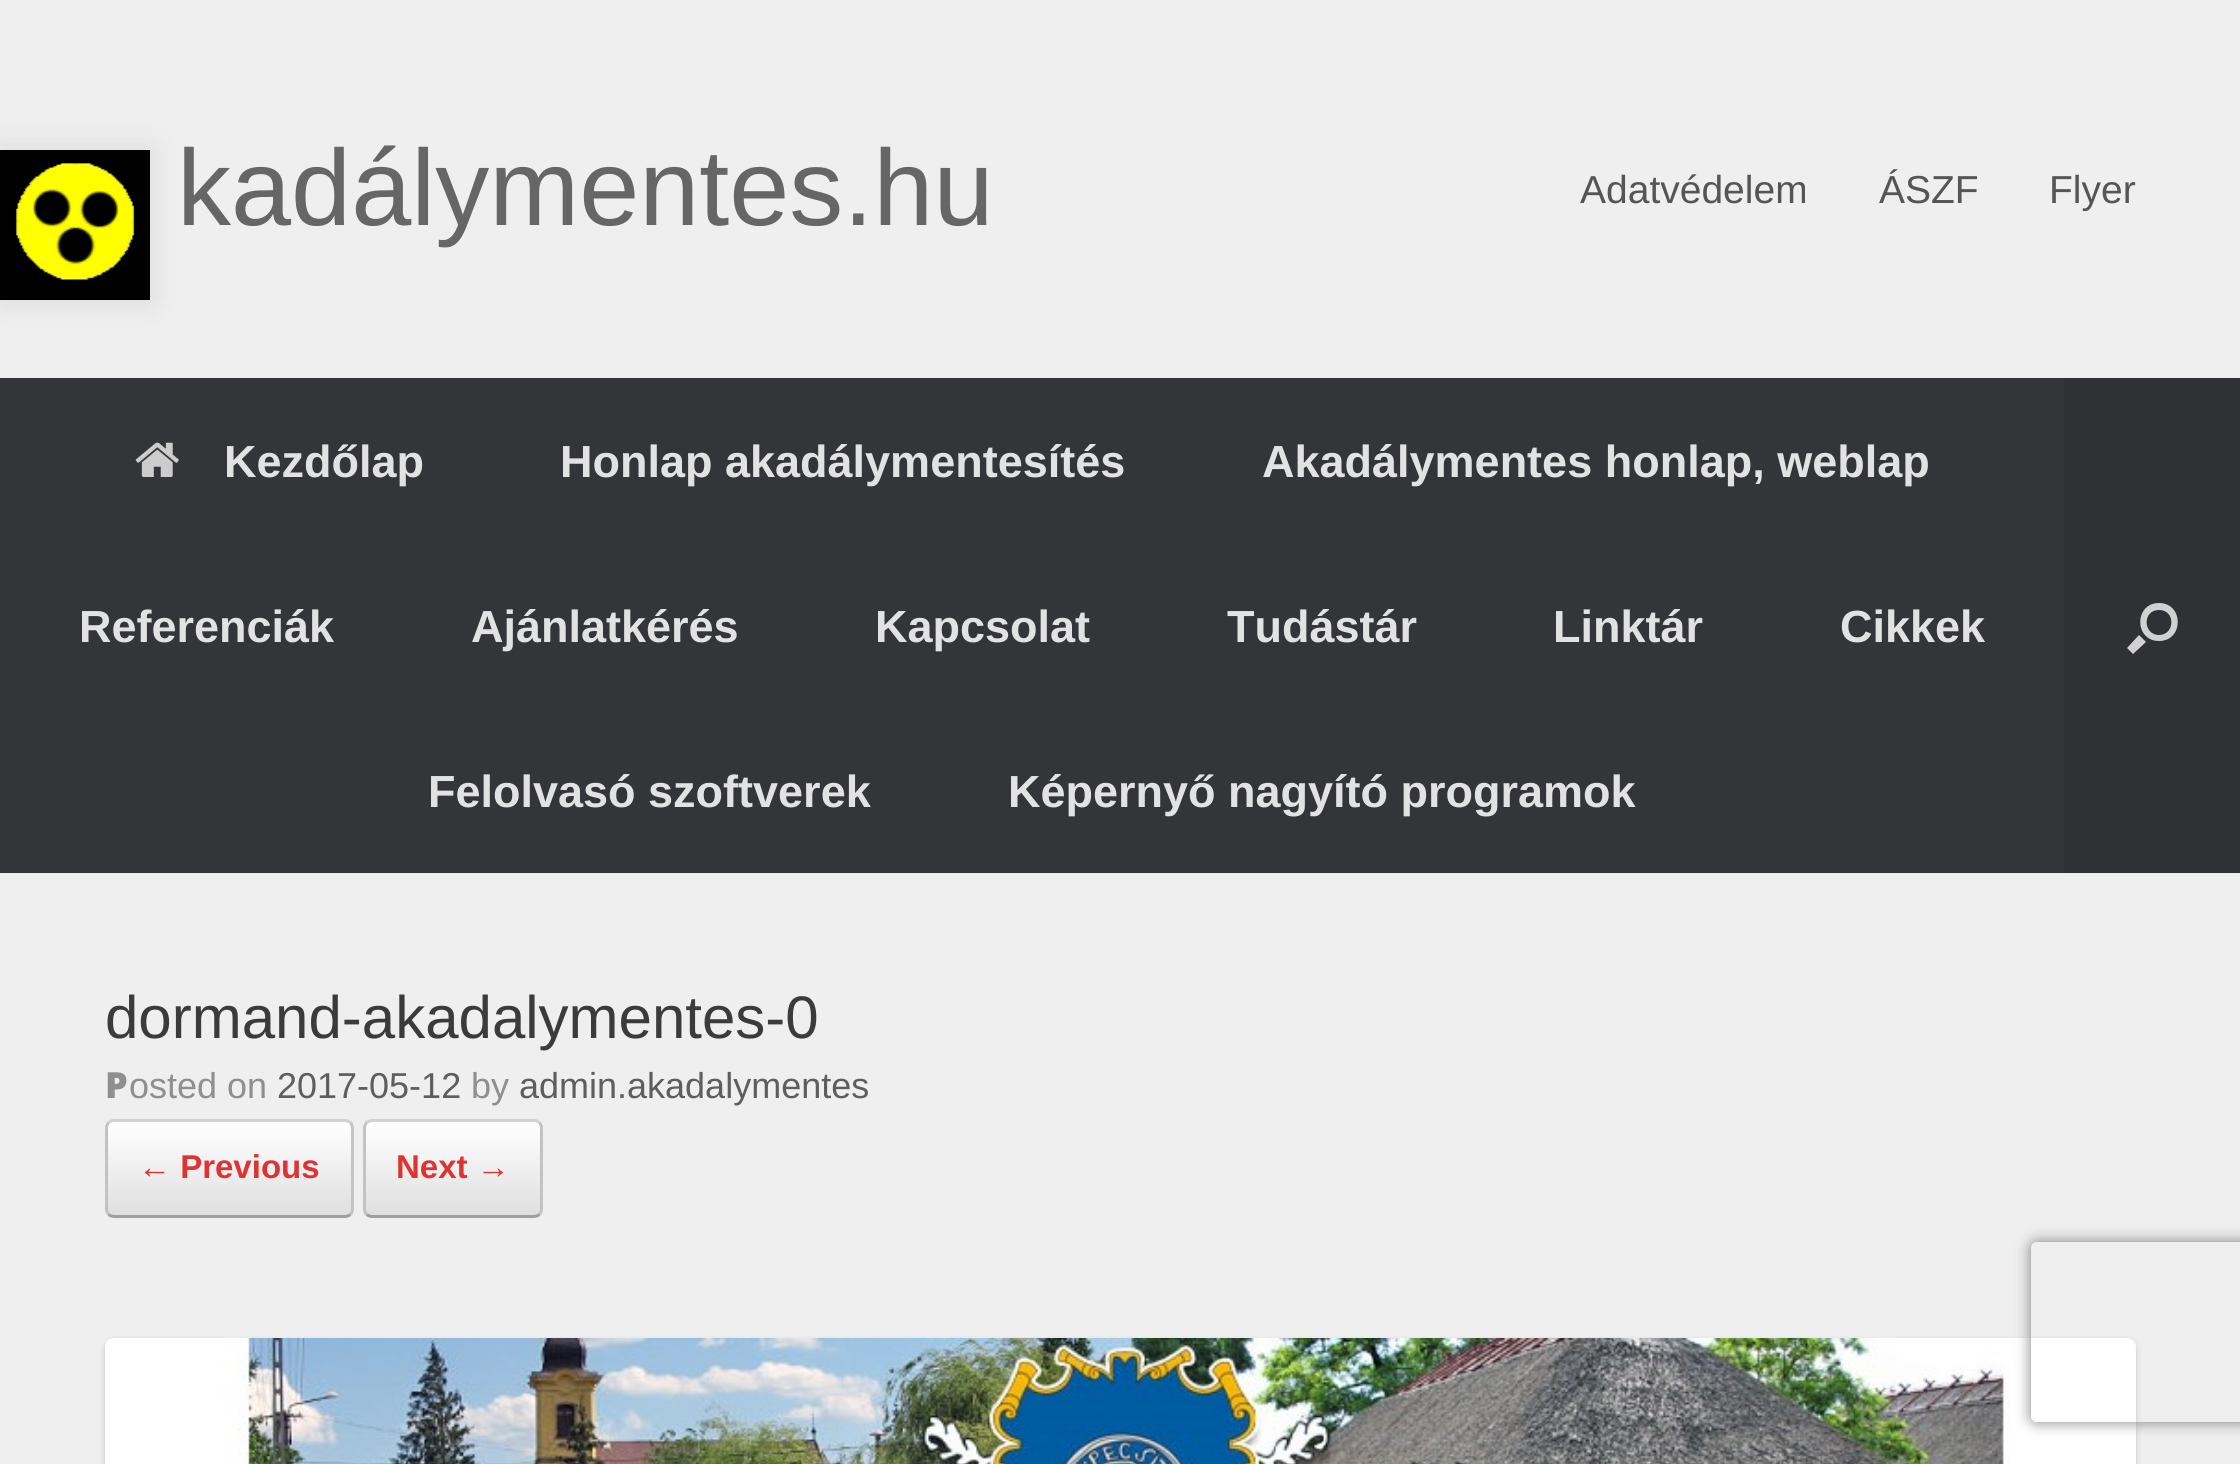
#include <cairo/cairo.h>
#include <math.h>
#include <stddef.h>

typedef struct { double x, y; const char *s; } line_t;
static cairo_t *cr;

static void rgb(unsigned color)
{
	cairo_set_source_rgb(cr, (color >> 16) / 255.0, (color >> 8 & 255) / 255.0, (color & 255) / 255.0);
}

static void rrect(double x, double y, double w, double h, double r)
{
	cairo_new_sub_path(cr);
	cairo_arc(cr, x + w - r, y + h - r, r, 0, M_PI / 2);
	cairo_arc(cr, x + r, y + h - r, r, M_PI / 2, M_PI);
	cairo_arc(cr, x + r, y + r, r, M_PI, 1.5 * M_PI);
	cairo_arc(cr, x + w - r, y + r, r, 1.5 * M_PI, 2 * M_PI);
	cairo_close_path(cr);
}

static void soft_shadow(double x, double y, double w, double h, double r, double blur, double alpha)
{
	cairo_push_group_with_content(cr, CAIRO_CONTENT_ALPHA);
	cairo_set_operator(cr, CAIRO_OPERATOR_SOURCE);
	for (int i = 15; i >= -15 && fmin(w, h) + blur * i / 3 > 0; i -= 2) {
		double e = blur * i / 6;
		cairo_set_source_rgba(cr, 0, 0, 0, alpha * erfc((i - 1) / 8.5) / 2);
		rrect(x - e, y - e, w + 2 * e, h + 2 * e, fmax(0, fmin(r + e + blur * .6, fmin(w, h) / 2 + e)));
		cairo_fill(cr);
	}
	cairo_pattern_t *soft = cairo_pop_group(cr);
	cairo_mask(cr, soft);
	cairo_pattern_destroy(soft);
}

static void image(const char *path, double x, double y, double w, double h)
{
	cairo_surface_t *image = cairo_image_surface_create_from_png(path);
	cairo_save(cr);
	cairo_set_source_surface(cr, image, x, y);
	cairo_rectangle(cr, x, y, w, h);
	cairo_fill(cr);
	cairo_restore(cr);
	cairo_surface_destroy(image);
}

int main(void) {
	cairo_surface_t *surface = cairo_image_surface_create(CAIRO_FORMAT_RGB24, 2240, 1464);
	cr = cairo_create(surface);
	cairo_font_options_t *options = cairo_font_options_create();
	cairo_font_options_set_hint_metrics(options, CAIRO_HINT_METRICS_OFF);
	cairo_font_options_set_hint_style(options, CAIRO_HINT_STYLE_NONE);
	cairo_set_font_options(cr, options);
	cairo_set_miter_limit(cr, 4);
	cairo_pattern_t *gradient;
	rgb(0xefefef);
	cairo_paint(cr);
	rgb(0x000000);
	soft_shadow(0, 150, 150, 150, 0, 15, 0.1);
	rgb(0x000000);
	cairo_rectangle(cr, 0, 150, 150, 150);
	cairo_fill(cr);
	image("img/1.png", 16, 163, 119, 117);
	rgb(0x343538);
	cairo_rectangle(cr, 0, 378, 2064, 495);
	cairo_fill(cr);
	image("img/2.png", 135, 442, 44, 35);
	rgb(0x303134);
	cairo_rectangle(cr, 2064, 378, 176, 495);
	cairo_fill(cr);
	rgb(0xd1d1d1);
	cairo_new_path(cr);
	cairo_move_to(cr, 2159, 610);
	cairo_curve_to(cr, 2176, 610, 2175, 635, 2159, 635);
	cairo_curve_to(cr, 2143, 635, 2142, 610, 2159, 610);
	cairo_close_path(cr);
	cairo_move_to(cr, 2159, 603);
	cairo_curve_to(cr, 2134, 603, 2134, 641, 2159, 641);
	cairo_curve_to(cr, 2184, 641, 2184, 603, 2159, 603);
	cairo_close_path(cr);
	cairo_move_to(cr, 2139, 635);
	cairo_line_to(cr, 2146, 642);
	cairo_line_to(cr, 2133, 654);
	cairo_line_to(cr, 2127, 648);
	cairo_close_path(cr);
	cairo_fill(cr);
	cairo_save(cr);
	rrect(105, 1119, 249, 99, 9);
	cairo_clip(cr);
	gradient = cairo_pattern_create_linear(108, 1215, 108, 1122);
	cairo_pattern_add_color_stop_rgba(gradient, 0, 0.875, 0.875, 0.875, 1);
	cairo_pattern_add_color_stop_rgba(gradient, 1, 1, 1, 1, 1);
	cairo_set_source(cr, gradient);
	cairo_pattern_destroy(gradient);
	cairo_rectangle(cr, 105, 1122, 249, 93);
	cairo_fill(cr);
	cairo_restore(cr);
	cairo_new_path(cr);
	cairo_move_to(cr, 108.5, 1122.5);
	cairo_curve_to(cr, 110, 1121.5, 112, 1120.5, 114, 1120.5);
	cairo_line_to(cr, 345, 1120.5);
	cairo_curve_to(cr, 347, 1120.5, 349, 1121.5, 350.5, 1122.5);
	rgb(0xd2d2d2);
	cairo_set_line_width(cr, 3);
	cairo_stroke(cr);
	cairo_new_path(cr);
	cairo_move_to(cr, 350.5, 1122.5);
	cairo_curve_to(cr, 351.5, 1124, 352.5, 1126, 352.5, 1128);
	cairo_line_to(cr, 352.5, 1209);
	cairo_curve_to(cr, 352.5, 1211, 351.5, 1213, 350.5, 1214.5);
	rgb(0xc3c3c3);
	cairo_stroke(cr);
	cairo_new_path(cr);
	cairo_move_to(cr, 350.5, 1214.5);
	cairo_curve_to(cr, 349, 1215.5, 347, 1216.5, 345, 1216.5);
	cairo_line_to(cr, 114, 1216.5);
	cairo_curve_to(cr, 112, 1216.5, 110, 1215.5, 108.5, 1214.5);
	rgb(0x9f9f9f);
	cairo_stroke(cr);
	cairo_new_path(cr);
	cairo_move_to(cr, 108.5, 1214.5);
	cairo_curve_to(cr, 107.5, 1213, 106.5, 1211, 106.5, 1209);
	cairo_line_to(cr, 106.5, 1128);
	cairo_curve_to(cr, 106.5, 1126, 107.5, 1124, 108.5, 1122.5);
	rgb(0xc3c3c3);
	cairo_stroke(cr);
	cairo_save(cr);
	rrect(363, 1119, 180, 99, 9);
	cairo_clip(cr);
	gradient = cairo_pattern_create_linear(366, 1215, 366, 1122);
	cairo_pattern_add_color_stop_rgba(gradient, 0, 0.875, 0.875, 0.875, 1);
	cairo_pattern_add_color_stop_rgba(gradient, 1, 1, 1, 1, 1);
	cairo_set_source(cr, gradient);
	cairo_pattern_destroy(gradient);
	cairo_rectangle(cr, 363, 1122, 180, 93);
	cairo_fill(cr);
	cairo_restore(cr);
	cairo_new_path(cr);
	cairo_move_to(cr, 366.5, 1122.5);
	cairo_curve_to(cr, 368, 1121.5, 370, 1120.5, 372, 1120.5);
	cairo_line_to(cr, 534, 1120.5);
	cairo_curve_to(cr, 536, 1120.5, 538, 1121.5, 539.5, 1122.5);
	rgb(0xd2d2d2);
	cairo_stroke(cr);
	cairo_new_path(cr);
	cairo_move_to(cr, 539.5, 1122.5);
	cairo_curve_to(cr, 540.5, 1124, 541.5, 1126, 541.5, 1128);
	cairo_line_to(cr, 541.5, 1209);
	cairo_curve_to(cr, 541.5, 1211, 540.5, 1213, 539.5, 1214.5);
	rgb(0xc3c3c3);
	cairo_stroke(cr);
	cairo_new_path(cr);
	cairo_move_to(cr, 539.5, 1214.5);
	cairo_curve_to(cr, 538, 1215.5, 536, 1216.5, 534, 1216.5);
	cairo_line_to(cr, 372, 1216.5);
	cairo_curve_to(cr, 370, 1216.5, 368, 1215.5, 366.5, 1214.5);
	rgb(0x9f9f9f);
	cairo_stroke(cr);
	cairo_new_path(cr);
	cairo_move_to(cr, 366.5, 1214.5);
	cairo_curve_to(cr, 365.5, 1213, 364.5, 1211, 364.5, 1209);
	cairo_line_to(cr, 364.5, 1128);
	cairo_curve_to(cr, 364.5, 1126, 365.5, 1124, 366.5, 1122.5);
	rgb(0xc3c3c3);
	cairo_stroke(cr);
	rgb(0x000000);
	soft_shadow(105, 1341, 2031, 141, 9, 3, 0.18);
	image("img/3.png", 105, 1338, 2031, 126);
	cairo_save(cr);
	cairo_set_fill_rule(cr, CAIRO_FILL_RULE_EVEN_ODD);
	cairo_new_path(cr);
	cairo_move_to(cr, 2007, 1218);
	cairo_line_to(cr, 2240, 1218);
	cairo_line_to(cr, 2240, 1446);
	cairo_line_to(cr, 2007, 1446);
	cairo_close_path(cr);
	cairo_move_to(cr, 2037, 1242);
	cairo_line_to(cr, 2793, 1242);
	cairo_curve_to(cr, 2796.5, 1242, 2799, 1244.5, 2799, 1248);
	cairo_line_to(cr, 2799, 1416);
	cairo_curve_to(cr, 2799, 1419.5, 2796.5, 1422, 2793, 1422);
	cairo_line_to(cr, 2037, 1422);
	cairo_curve_to(cr, 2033.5, 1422, 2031, 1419.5, 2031, 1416);
	cairo_line_to(cr, 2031, 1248);
	cairo_curve_to(cr, 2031, 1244.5, 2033.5, 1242, 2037, 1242);
	cairo_close_path(cr);
	cairo_clip(cr);
	rgb(0x808080);
	soft_shadow(2031, 1242, 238, 180, 6, 7.5, 1);
	cairo_restore(cr);
	cairo_select_font_face(cr, "Liberation Sans", CAIRO_FONT_SLANT_NORMAL, CAIRO_FONT_WEIGHT_NORMAL);
	cairo_set_font_size(cr, 108);
	rgb(0x666666);
	cairo_move_to(cr, 177, 225);
	cairo_show_text(cr, "kadálymentes.hu");
	cairo_set_font_size(cr, 39);
	rgb(0x555555);
	{
		static const line_t items[] = {
			{1580, 203, "Adatvédelem"},
			{1879, 203, "ÁSZF"},
			{2049, 203, "Flyer"},
		};
		for (size_t i = 0; i < sizeof items / sizeof *items; i++) {
			cairo_move_to(cr, items[i].x, items[i].y);
			cairo_show_text(cr, items[i].s);
		}
	}
	cairo_select_font_face(cr, "Liberation Sans", CAIRO_FONT_SLANT_NORMAL, CAIRO_FONT_WEIGHT_BOLD);
	cairo_set_font_size(cr, 45);
	rgb(0xe2e2e2);
	{
		static const line_t items[] = {
			{224, 477, "Kezdőlap"},
			{560, 477, "Honlap akadálymentesítés"},
			{1262, 477, "Akadálymentes honlap, weblap"},
			{79, 642, "Referenciák"},
			{471, 642, "Ajánlatkérés"},
			{875, 642, "Kapcsolat"},
			{1227, 642, "Tudástár"},
			{1553, 642, "Linktár"},
			{1840, 642, "Cikkek"},
			{428, 807, "Felolvasó szoftverek"},
			{1008, 807, "Képernyő nagyító programok"},
		};
		for (size_t i = 0; i < sizeof items / sizeof *items; i++) {
			cairo_move_to(cr, items[i].x, items[i].y);
			cairo_show_text(cr, items[i].s);
		}
	}
	cairo_select_font_face(cr, "Liberation Sans", CAIRO_FONT_SLANT_NORMAL, CAIRO_FONT_WEIGHT_NORMAL);
	cairo_set_font_size(cr, 60);
	rgb(0x3b3b3b);
	cairo_move_to(cr, 105, 1038);
	cairo_show_text(cr, "dormand-akadalymentes-0");
	cairo_select_font_face(cr, "Noto Sans Black", CAIRO_FONT_SLANT_NORMAL, CAIRO_FONT_WEIGHT_NORMAL);
	cairo_set_font_size(cr, 36);
	rgb(0x8f8f8f);
	cairo_move_to(cr, 105, 1098);
	cairo_show_text(cr, "P");
	cairo_select_font_face(cr, "Liberation Sans", CAIRO_FONT_SLANT_NORMAL, CAIRO_FONT_WEIGHT_NORMAL);
	cairo_move_to(cr, 129, 1098);
	cairo_show_text(cr, "osted on");
	rgb(0x5e5e5e);
	cairo_move_to(cr, 277, 1098);
	cairo_show_text(cr, "2017-05-12");
	rgb(0x8f8f8f);
	cairo_move_to(cr, 471, 1098);
	cairo_show_text(cr, "by");
	rgb(0x5e5e5e);
	cairo_move_to(cr, 519, 1098);
	cairo_show_text(cr, "admin.akadalymentes");
	cairo_select_font_face(cr, "Liberation Sans", CAIRO_FONT_SLANT_NORMAL, CAIRO_FONT_WEIGHT_BOLD);
	cairo_set_font_size(cr, 33);
	rgb(0xdd3333);
	cairo_move_to(cr, 138, 1178);
	cairo_show_text(cr, "← Previous");
	cairo_move_to(cr, 396, 1178);
	cairo_show_text(cr, "Next →");
	cairo_surface_write_to_png(surface, "page.png");
	cairo_font_options_destroy(options);
	cairo_destroy(cr);
	cairo_surface_destroy(surface);
	return 0;
}
